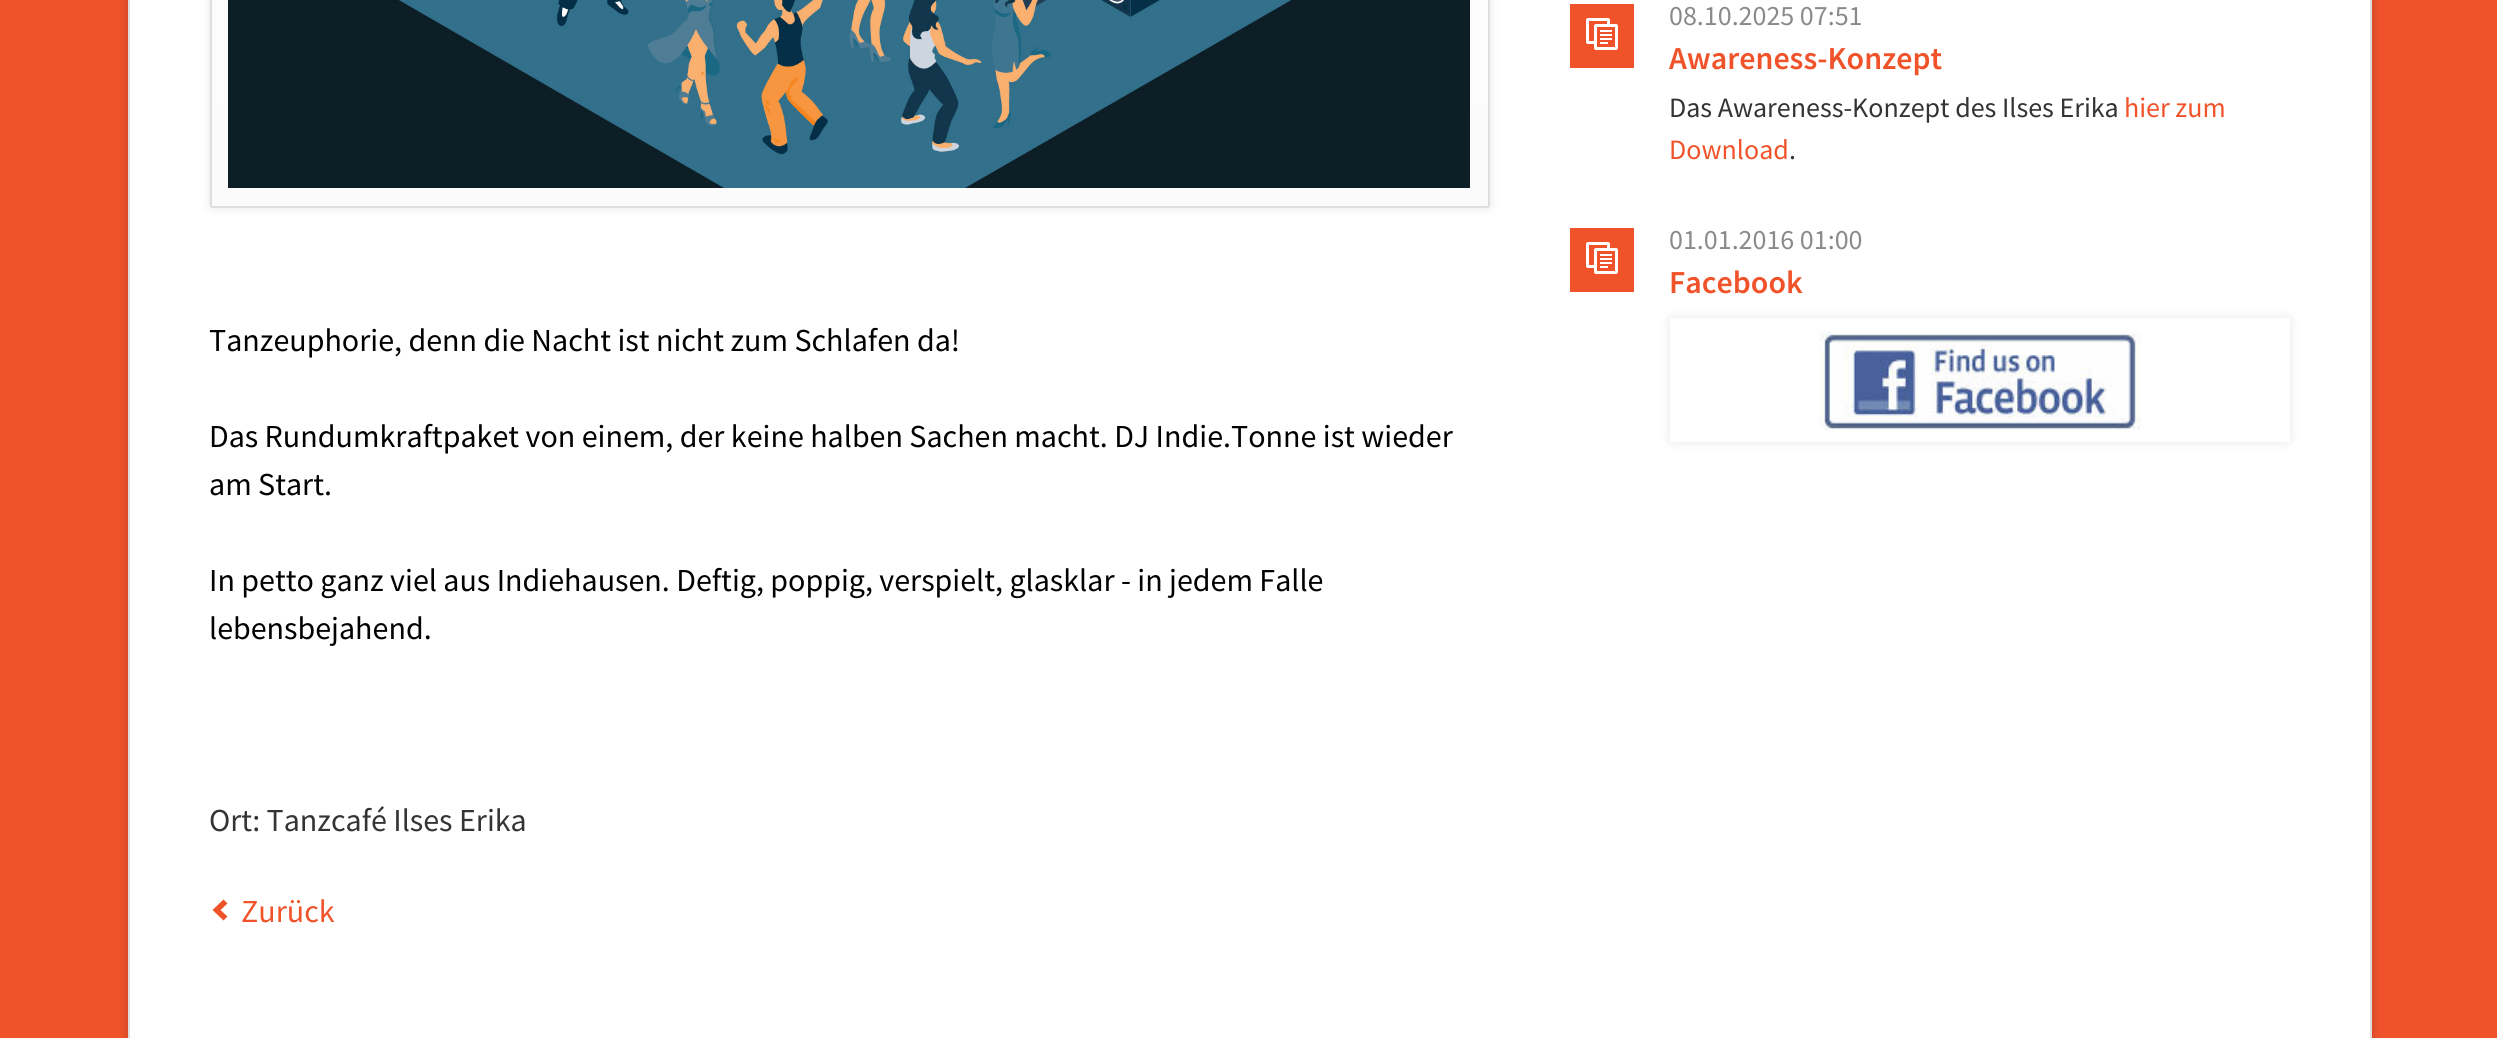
#include <cairo/cairo.h>
#include <math.h>
#include <stddef.h>

typedef struct { double x, y; const char *s; } line_t;
typedef struct { double x, y, w, h; unsigned color; } box_t;
static cairo_t *cr;

static void rgb(unsigned color)
{
	cairo_set_source_rgb(cr, (color >> 16) / 255.0, (color >> 8 & 255) / 255.0, (color & 255) / 255.0);
}

static void rrect(double x, double y, double w, double h, double r)
{
	cairo_new_sub_path(cr);
	cairo_arc(cr, x + w - r, y + h - r, r, 0, M_PI / 2);
	cairo_arc(cr, x + r, y + h - r, r, M_PI / 2, M_PI);
	cairo_arc(cr, x + r, y + r, r, M_PI, 1.5 * M_PI);
	cairo_arc(cr, x + w - r, y + r, r, 1.5 * M_PI, 2 * M_PI);
	cairo_close_path(cr);
}

static void soft_shadow(double x, double y, double w, double h, double r, double blur, double alpha)
{
	cairo_push_group_with_content(cr, CAIRO_CONTENT_ALPHA);
	cairo_set_operator(cr, CAIRO_OPERATOR_SOURCE);
	for (int i = 15; i >= -15 && fmin(w, h) + blur * i / 3 > 0; i -= 2) {
		double e = blur * i / 6;
		cairo_set_source_rgba(cr, 0, 0, 0, alpha * erfc((i - 1) / 8.5) / 2);
		rrect(x - e, y - e, w + 2 * e, h + 2 * e, fmax(0, fmin(r + e + blur * .6, fmin(w, h) / 2 + e)));
		cairo_fill(cr);
	}
	cairo_pattern_t *soft = cairo_pop_group(cr);
	cairo_mask(cr, soft);
	cairo_pattern_destroy(soft);
}

static void image(const char *path, double x, double y, double w, double h)
{
	cairo_surface_t *image = cairo_image_surface_create_from_png(path);
	cairo_save(cr);
	cairo_set_source_surface(cr, image, x, y);
	cairo_rectangle(cr, x, y, w, h);
	cairo_fill(cr);
	cairo_restore(cr);
	cairo_surface_destroy(image);
}

int main(void) {
	cairo_surface_t *surface = cairo_image_surface_create(CAIRO_FORMAT_RGB24, 2497, 1038);
	cr = cairo_create(surface);
	cairo_font_options_t *options = cairo_font_options_create();
	cairo_font_options_set_hint_metrics(options, CAIRO_HINT_METRICS_OFF);
	cairo_font_options_set_hint_style(options, CAIRO_HINT_STYLE_NONE);
	cairo_set_font_options(cr, options);
	cairo_set_miter_limit(cr, 4);
	cairo_pattern_t *gradient;
	rgb(0xf0532a);
	cairo_paint(cr);
	rgb(0x000000);
	soft_shadow(128, -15, 2244, 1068, 0, 5, 0.2);
	{
		static const box_t items[] = {
			{130, 0, 2240, 1038, 0xffffff},
			{2370, 0, 2, 1038, 0xdedede},
			{128, 0, 2, 1038, 0xdedede},
			{1570, 4, 64, 64, 0xf0532a},
		};
		for (size_t i = 0; i < sizeof items / sizeof *items; i++) {
			rgb(items[i].color);
			cairo_rectangle(cr, items[i].x, items[i].y, items[i].w, items[i].h);
			cairo_fill(cr);
		}
	}
	image("img/1.png", 1586, 18, 32, 32);
	cairo_rectangle(cr, 1570, 228, 64, 64);
	cairo_fill(cr);
	image("img/1.png", 1586, 242, 32, 32);
	rgb(0x000000);
	soft_shadow(1670, 318, 620, 124, 3, 5, 0.1);
	image("img/2.png", 1670, 318, 620, 124);
	soft_shadow(210, -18, 1280, 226, 3, 5, 0.1);
	gradient = cairo_pattern_create_linear(850, -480, 850, 206);
	cairo_pattern_add_color_stop_rgba(gradient, 0, 1, 1, 1, 1);
	cairo_pattern_add_color_stop_rgba(gradient, 1, 0.984, 0.984, 0.984, 1);
	cairo_set_source(cr, gradient);
	cairo_pattern_destroy(gradient);
	cairo_rectangle(cr, 210, 0, 1280, 206);
	cairo_fill(cr);
	rrect(211, -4, 1278, 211, 2);
	rgb(0xdedede);
	cairo_stroke(cr);
	image("img/3.png", 228, 0, 1242, 188);
	rgb(0xf0532a);
	cairo_new_path(cr);
	cairo_move_to(cr, 223.5, 920.5);
	cairo_line_to(cr, 227.5, 916.5);
	cairo_line_to(cr, 220.5, 910);
	cairo_line_to(cr, 227.5, 903.5);
	cairo_line_to(cr, 223.5, 899.5);
	cairo_line_to(cr, 212.5, 910);
	cairo_close_path(cr);
	cairo_fill(cr);
	cairo_select_font_face(cr, "Source Sans Pro", CAIRO_FONT_SLANT_NORMAL, CAIRO_FONT_WEIGHT_NORMAL);
	cairo_set_font_size(cr, 28);
	rgb(0x8a8a8a);
	cairo_move_to(cr, 1669, 25);
	cairo_show_text(cr, "08.10.2025 07:51");
	cairo_select_font_face(cr, "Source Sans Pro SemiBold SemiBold", CAIRO_FONT_SLANT_NORMAL, CAIRO_FONT_WEIGHT_NORMAL);
	cairo_set_font_size(cr, 32);
	rgb(0xf0532a);
	cairo_move_to(cr, 1669, 69);
	cairo_show_text(cr, "Awareness-Konzept");
	cairo_select_font_face(cr, "Source Sans Pro", CAIRO_FONT_SLANT_NORMAL, CAIRO_FONT_WEIGHT_NORMAL);
	cairo_set_font_size(cr, 28);
	rgb(0x343434);
	cairo_move_to(cr, 1669, 117);
	cairo_show_text(cr, "Das Awareness-Konzept des Ilses Erika");
	rgb(0xf0532a);
	cairo_move_to(cr, 2124, 117);
	cairo_show_text(cr, "hier zum");
	cairo_move_to(cr, 1669, 159);
	cairo_show_text(cr, "Download");
	rgb(0x343434);
	cairo_move_to(cr, 1789, 159);
	cairo_show_text(cr, ".");
	rgb(0x8a8a8a);
	cairo_move_to(cr, 1669, 249);
	cairo_show_text(cr, "01.01.2016 01:00");
	cairo_select_font_face(cr, "Source Sans Pro SemiBold SemiBold", CAIRO_FONT_SLANT_NORMAL, CAIRO_FONT_WEIGHT_NORMAL);
	cairo_set_font_size(cr, 32);
	rgb(0xf0532a);
	cairo_move_to(cr, 1669, 293);
	cairo_show_text(cr, "Facebook");
	cairo_select_font_face(cr, "Source Sans Pro", CAIRO_FONT_SLANT_NORMAL, CAIRO_FONT_WEIGHT_NORMAL);
	rgb(0x000000);
	{
		static const line_t items[] = {
			{209, 351, "Tanzeuphorie, denn die Nacht ist nicht zum Schlafen da!"},
			{209, 447, "Das Rundumkraftpaket von einem, der keine halben Sachen macht. DJ Indie.Tonne ist wieder"},
			{209, 495, "am Start."},
			{209, 591, "In petto ganz viel aus Indiehausen. Deftig, poppig, verspielt, glasklar - in jedem Falle"},
			{209, 639, "lebensbejahend."},
		};
		for (size_t i = 0; i < sizeof items / sizeof *items; i++) {
			cairo_move_to(cr, items[i].x, items[i].y);
			cairo_show_text(cr, items[i].s);
		}
	}
	rgb(0x343434);
	cairo_move_to(cr, 209, 831);
	cairo_show_text(cr, "Ort: Tanzcafé Ilses Erika");
	rgb(0xf0532a);
	cairo_move_to(cr, 241, 922);
	cairo_show_text(cr, "Zurück");
	cairo_surface_write_to_png(surface, "page.png");
	cairo_font_options_destroy(options);
	cairo_destroy(cr);
	cairo_surface_destroy(surface);
	return 0;
}
